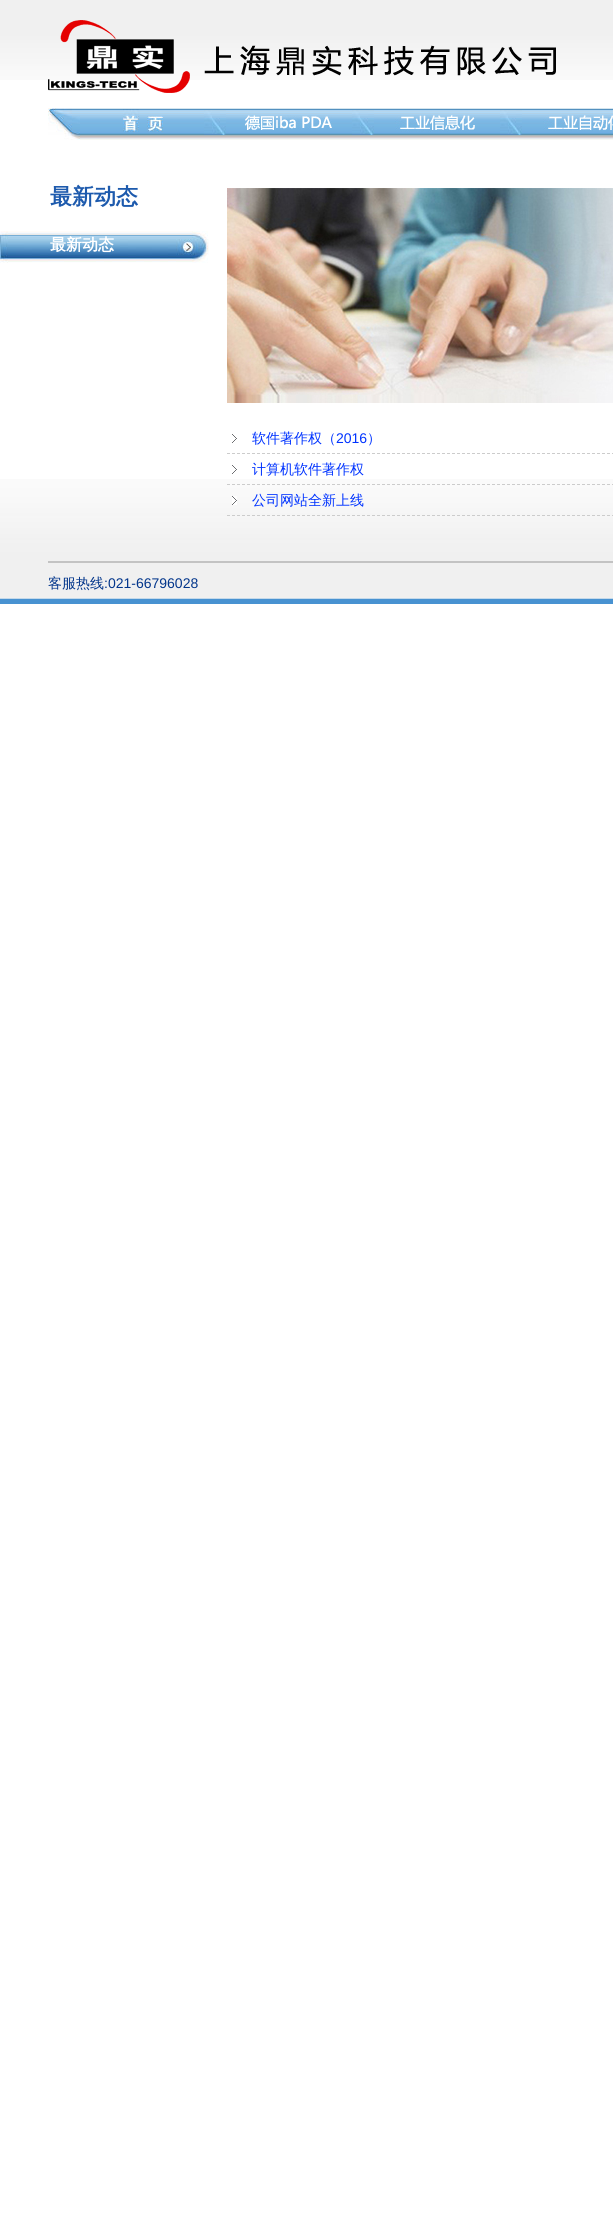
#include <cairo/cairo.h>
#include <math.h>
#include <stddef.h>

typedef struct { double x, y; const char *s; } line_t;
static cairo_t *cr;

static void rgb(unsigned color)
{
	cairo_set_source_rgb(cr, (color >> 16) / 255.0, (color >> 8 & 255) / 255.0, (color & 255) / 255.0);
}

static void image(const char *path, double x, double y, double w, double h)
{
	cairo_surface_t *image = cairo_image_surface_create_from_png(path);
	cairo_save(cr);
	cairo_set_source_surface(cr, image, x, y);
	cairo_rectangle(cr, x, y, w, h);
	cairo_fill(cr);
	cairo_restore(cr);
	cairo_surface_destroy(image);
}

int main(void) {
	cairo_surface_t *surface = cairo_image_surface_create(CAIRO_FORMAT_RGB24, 613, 2238);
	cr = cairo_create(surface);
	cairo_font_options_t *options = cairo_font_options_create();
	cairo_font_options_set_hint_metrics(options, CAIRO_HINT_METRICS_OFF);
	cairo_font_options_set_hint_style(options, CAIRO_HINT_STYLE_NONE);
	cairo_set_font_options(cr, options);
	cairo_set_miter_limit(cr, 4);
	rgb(0xffffff);
	cairo_paint(cr);
	image("img/1.png", 0, 0, 613, 80);
	rgb(0x4892d1);
	cairo_rectangle(cr, 0, 599, 613, 5);
	cairo_fill(cr);
	image("img/2.png", 48, 20, 508, 73);
	image("img/3.png", 48, 108, 565, 32);
	image("img/4.png", 204, 110, 22, 25);
	image("img/5.png", 123, 109, 40, 23);
	image("img/4.png", 352, 110, 22, 25);
	image("img/6.png", 245, 115, 87, 15);
	image("img/4.png", 500, 110, 22, 25);
	image("img/7.png", 395, 115, 80, 17);
	image("img/8.png", 543, 115, 70, 16);
	image("img/9.png", 0, 479, 613, 120);
	image("img/10.png", 0, 231, 209, 32);
	image("img/11.png", 227, 188, 386, 215);
	image("img/12.png", 232, 434, 5, 9);
	cairo_new_path(cr);
	cairo_move_to(cr, 227, 453.5);
	cairo_line_to(cr, 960, 453.5);
	rgb(0xcccccc);
	cairo_set_line_width(cr, 1);
	cairo_set_dash(cr, (double[]){3, 2}, 2, 0);
	cairo_stroke(cr);
	image("img/12.png", 232, 465, 5, 9);
	cairo_new_path(cr);
	cairo_move_to(cr, 227, 484.5);
	cairo_line_to(cr, 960, 484.5);
	cairo_stroke(cr);
	image("img/12.png", 232, 496, 5, 9);
	cairo_new_path(cr);
	cairo_move_to(cr, 227, 515.5);
	cairo_line_to(cr, 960, 515.5);
	cairo_stroke(cr);
	rgb(0xc3c3c3);
	cairo_rectangle(cr, 48, 561, 565, 2);
	cairo_fill(cr);
	cairo_select_font_face(cr, "WenQuanYi Zen Hei", CAIRO_FONT_SLANT_NORMAL, CAIRO_FONT_WEIGHT_BOLD);
	cairo_set_font_size(cr, 22);
	rgb(0x1d5aad);
	cairo_move_to(cr, 50, 204);
	cairo_show_text(cr, "最新动态");
	cairo_set_font_size(cr, 16);
	rgb(0xffffff);
	cairo_move_to(cr, 50, 250);
	cairo_show_text(cr, "最新动态");
	cairo_select_font_face(cr, "WenQuanYi Zen Hei Medium", CAIRO_FONT_SLANT_NORMAL, CAIRO_FONT_WEIGHT_NORMAL);
	cairo_set_font_size(cr, 14);
	rgb(0x0033ff);
	cairo_move_to(cr, 252, 443);
	cairo_show_text(cr, "软件著作权（");
	cairo_select_font_face(cr, "Liberation Sans", CAIRO_FONT_SLANT_NORMAL, CAIRO_FONT_WEIGHT_NORMAL);
	cairo_move_to(cr, 336, 443);
	cairo_show_text(cr, "2016");
	cairo_select_font_face(cr, "WenQuanYi Zen Hei Medium", CAIRO_FONT_SLANT_NORMAL, CAIRO_FONT_WEIGHT_NORMAL);
	{
		static const line_t items[] = {
			{367, 443, "）"},
			{252, 474, "计算机软件著作权"},
			{252, 505, "公司网站全新上线"},
		};
		for (size_t i = 0; i < sizeof items / sizeof *items; i++) {
			cairo_move_to(cr, items[i].x, items[i].y);
			cairo_show_text(cr, items[i].s);
		}
	}
	rgb(0x03368b);
	cairo_move_to(cr, 48, 588);
	cairo_show_text(cr, "客服热线");
	cairo_select_font_face(cr, "Liberation Sans", CAIRO_FONT_SLANT_NORMAL, CAIRO_FONT_WEIGHT_NORMAL);
	cairo_move_to(cr, 104, 588);
	cairo_show_text(cr, ":021-66796028");
	cairo_surface_write_to_png(surface, "page.png");
	cairo_font_options_destroy(options);
	cairo_destroy(cr);
	cairo_surface_destroy(surface);
	return 0;
}
